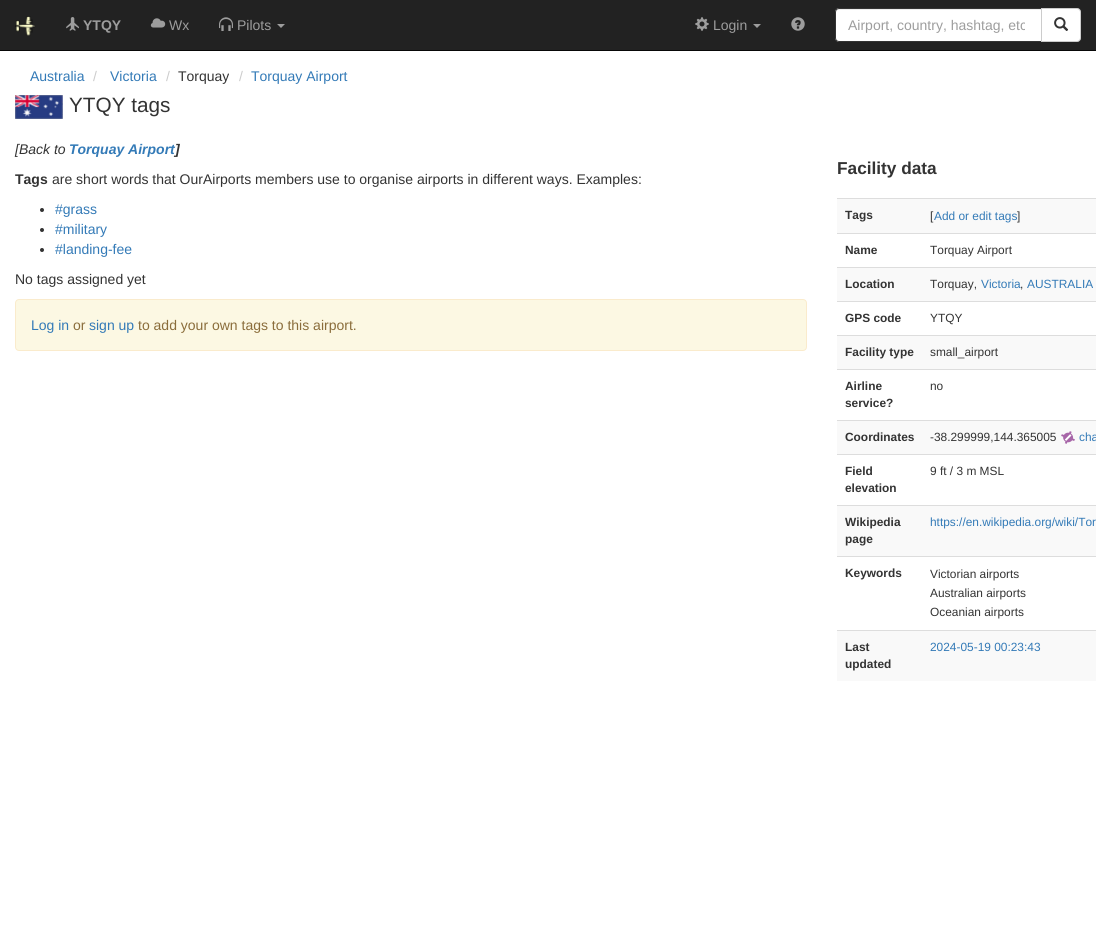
#include <cairo/cairo.h>
#include <math.h>
#include <stddef.h>

typedef struct { double x, y; const char *s; } line_t;
typedef struct { double x, y, w, h; unsigned color; } box_t;
static cairo_t *cr;

static void rgb(unsigned color)
{
	cairo_set_source_rgb(cr, (color >> 16) / 255.0, (color >> 8 & 255) / 255.0, (color & 255) / 255.0);
}

static void rrect(double x, double y, double w, double h, double r)
{
	cairo_new_sub_path(cr);
	cairo_arc(cr, x + w - r, y + h - r, r, 0, M_PI / 2);
	cairo_arc(cr, x + r, y + h - r, r, M_PI / 2, M_PI);
	cairo_arc(cr, x + r, y + r, r, M_PI, 1.5 * M_PI);
	cairo_arc(cr, x + w - r, y + r, r, 1.5 * M_PI, 2 * M_PI);
	cairo_close_path(cr);
}

static void image(const char *path, double x, double y, double w, double h)
{
	cairo_surface_t *image = cairo_image_surface_create_from_png(path);
	cairo_save(cr);
	cairo_set_source_surface(cr, image, x, y);
	cairo_rectangle(cr, x, y, w, h);
	cairo_fill(cr);
	cairo_restore(cr);
	cairo_surface_destroy(image);
}

int main(void) {
	cairo_surface_t *surface = cairo_image_surface_create(CAIRO_FORMAT_RGB24, 1096, 948);
	cr = cairo_create(surface);
	cairo_font_options_t *options = cairo_font_options_create();
	cairo_font_options_set_hint_metrics(options, CAIRO_HINT_METRICS_OFF);
	cairo_font_options_set_hint_style(options, CAIRO_HINT_STYLE_NONE);
	cairo_set_font_options(cr, options);
	cairo_set_miter_limit(cr, 4);
	rgb(0xffffff);
	cairo_paint(cr);
	rgb(0x222222);
	cairo_rectangle(cr, 0, 0, 1096, 50);
	cairo_fill(cr);
	rgb(0x080808);
	cairo_rectangle(cr, 0, 50, 1096, 1);
	cairo_fill(cr);
	image("img/1.png", 15, 16, 20, 20);
	image("img/2.png", 66, 17, 13, 14);
	image("img/3.png", 150, 18, 16, 10);
	image("img/4.png", 219, 17, 14, 14);
	rgb(0x9d9d9d);
	cairo_new_path(cr);
	cairo_move_to(cr, 277, 24);
	cairo_line_to(cr, 285, 24);
	cairo_line_to(cr, 281, 28);
	cairo_close_path(cr);
	cairo_fill(cr);
	image("img/5.png", 695, 17, 14, 14);
	cairo_new_path(cr);
	cairo_move_to(cr, 753, 24);
	cairo_line_to(cr, 761, 24);
	cairo_line_to(cr, 757, 28);
	cairo_close_path(cr);
	cairo_fill(cr);
	image("img/6.png", 791, 17, 14, 14);
	rgb(0xffffff);
	cairo_new_path(cr);
	cairo_move_to(cr, 839, 8);
	cairo_line_to(cr, 1042, 8);
	cairo_line_to(cr, 1042, 42);
	cairo_line_to(cr, 839, 42);
	cairo_curve_to(cr, 837, 42, 835, 40, 835, 38);
	cairo_line_to(cr, 835, 12);
	cairo_curve_to(cr, 835, 10, 837, 8, 839, 8);
	cairo_close_path(cr);
	cairo_fill(cr);
	rgb(0xececec);
	cairo_new_path(cr);
	cairo_move_to(cr, 839, 10);
	cairo_line_to(cr, 1041, 10);
	cairo_line_to(cr, 1041, 9);
	cairo_line_to(cr, 838, 9);
	cairo_curve_to(cr, 836, 10, 836, 11, 836, 13);
	cairo_curve_to(cr, 836, 11, 837, 10, 839, 10);
	cairo_close_path(cr);
	cairo_fill(cr);
	cairo_new_path(cr);
	cairo_move_to(cr, 839, 8.5);
	cairo_line_to(cr, 1041.5, 8.5);
	cairo_line_to(cr, 1041.5, 41.5);
	cairo_line_to(cr, 839, 41.5);
	cairo_curve_to(cr, 837, 41.5, 835.5, 40, 835.5, 38);
	cairo_line_to(cr, 835.5, 12);
	cairo_curve_to(cr, 835.5, 10, 837, 8.5, 839, 8.5);
	cairo_close_path(cr);
	rgb(0x333333);
	cairo_set_line_width(cr, 1);
	cairo_stroke(cr);
	rgb(0xffffff);
	cairo_new_path(cr);
	cairo_move_to(cr, 1041.5, 8.5);
	cairo_line_to(cr, 1077, 8.5);
	cairo_curve_to(cr, 1079, 8.5, 1080.5, 10, 1080.5, 12);
	cairo_line_to(cr, 1080.5, 38);
	cairo_curve_to(cr, 1080.5, 40, 1079, 41.5, 1077, 41.5);
	cairo_line_to(cr, 1041.5, 41.5);
	cairo_close_path(cr);
	cairo_fill_preserve(cr);
	rgb(0xcccccc);
	cairo_stroke(cr);
	image("img/7.png", 1054, 17, 15, 14);
	image("img/8.png", 15, 95, 48, 24);
	rgb(0x333333);
	cairo_arc(cr, 42, 210, 2, 0, 2 * M_PI);
	cairo_fill(cr);
	cairo_arc(cr, 42, 230, 2, 0, 2 * M_PI);
	cairo_fill(cr);
	cairo_arc(cr, 42, 250, 2, 0, 2 * M_PI);
	cairo_fill(cr);
	rgb(0xfcf8e3);
	rrect(15.5, 299.5, 791, 51, 3.5);
	cairo_fill_preserve(cr);
	rgb(0xfaebcc);
	cairo_stroke(cr);
	{
		static const box_t items[] = {
			{837, 199, 259, 34, 0xf9f9f9},
			{837, 198, 259, 1, 0xdddddd},
			{837, 233, 259, 1, 0xdddddd},
			{837, 268, 259, 33, 0xf9f9f9},
			{837, 267, 259, 1, 0xdddddd},
			{837, 301, 259, 1, 0xdddddd},
			{837, 336, 259, 33, 0xf9f9f9},
			{837, 335, 259, 1, 0xdddddd},
			{837, 369, 259, 1, 0xdddddd},
			{837, 421, 259, 33, 0xf9f9f9},
			{837, 420, 259, 1, 0xdddddd},
		};
		for (size_t i = 0; i < sizeof items / sizeof *items; i++) {
			rgb(items[i].color);
			cairo_rectangle(cr, items[i].x, items[i].y, items[i].w, items[i].h);
			cairo_fill(cr);
		}
	}
	image("img/9.png", 1061, 431, 14, 13);
	{
		static const box_t items[] = {
			{837, 454, 259, 1, 0xdddddd},
			{837, 506, 259, 50, 0xf9f9f9},
			{837, 505, 259, 1, 0xdddddd},
			{837, 556, 259, 1, 0xdddddd},
			{837, 631, 259, 50, 0xf9f9f9},
			{837, 630, 259, 1, 0xdddddd},
		};
		for (size_t i = 0; i < sizeof items / sizeof *items; i++) {
			rgb(items[i].color);
			cairo_rectangle(cr, items[i].x, items[i].y, items[i].w, items[i].h);
			cairo_fill(cr);
		}
	}
	cairo_select_font_face(cr, "Liberation Sans", CAIRO_FONT_SLANT_NORMAL, CAIRO_FONT_WEIGHT_BOLD);
	cairo_set_font_size(cr, 14);
	rgb(0x9d9d9d);
	cairo_move_to(cr, 83, 30);
	cairo_show_text(cr, "YTQY");
	cairo_select_font_face(cr, "Liberation Sans", CAIRO_FONT_SLANT_NORMAL, CAIRO_FONT_WEIGHT_NORMAL);
	{
		static const line_t items[] = {
			{169, 30, "Wx"},
			{237, 30, "Pilots"},
			{713, 30, "Login"},
		};
		for (size_t i = 0; i < sizeof items / sizeof *items; i++) {
			cairo_move_to(cr, items[i].x, items[i].y);
			cairo_show_text(cr, items[i].s);
		}
	}
	cairo_save(cr);
	cairo_rectangle(cr, 848, 17, 177, 16);
	cairo_clip(cr);
	cairo_move_to(cr, 848, 30);
	cairo_show_text(cr, "Airport, country, hashtag, etc");
	cairo_restore(cr);
	rgb(0x337ab7);
	cairo_move_to(cr, 30, 81);
	cairo_show_text(cr, "Australia");
	rgb(0xcccccc);
	cairo_move_to(cr, 93, 81);
	cairo_show_text(cr, "/");
	rgb(0x337ab7);
	cairo_move_to(cr, 110, 81);
	cairo_show_text(cr, "Victoria");
	rgb(0xcccccc);
	cairo_move_to(cr, 166, 81);
	cairo_show_text(cr, "/");
	rgb(0x333333);
	cairo_move_to(cr, 178, 81);
	cairo_show_text(cr, "Torquay");
	rgb(0xcccccc);
	cairo_move_to(cr, 239, 81);
	cairo_show_text(cr, "/");
	rgb(0x337ab7);
	cairo_move_to(cr, 251, 81);
	cairo_show_text(cr, "Torquay Airport");
	cairo_set_font_size(cr, 20.75);
	rgb(0x333333);
	cairo_move_to(cr, 69, 112);
	cairo_show_text(cr, "YTQY tags");
	cairo_select_font_face(cr, "Liberation Sans", CAIRO_FONT_SLANT_ITALIC, CAIRO_FONT_WEIGHT_NORMAL);
	cairo_set_font_size(cr, 14);
	cairo_move_to(cr, 15, 154);
	cairo_show_text(cr, "[Back to");
	cairo_select_font_face(cr, "Liberation Sans", CAIRO_FONT_SLANT_ITALIC, CAIRO_FONT_WEIGHT_BOLD);
	rgb(0x337ab7);
	cairo_move_to(cr, 69, 154);
	cairo_show_text(cr, "Torquay Airport");
	rgb(0x333333);
	cairo_move_to(cr, 175, 154);
	cairo_show_text(cr, "]");
	cairo_select_font_face(cr, "Liberation Sans", CAIRO_FONT_SLANT_NORMAL, CAIRO_FONT_WEIGHT_BOLD);
	cairo_move_to(cr, 15, 184);
	cairo_show_text(cr, "Tags");
	cairo_select_font_face(cr, "Liberation Sans", CAIRO_FONT_SLANT_NORMAL, CAIRO_FONT_WEIGHT_NORMAL);
	cairo_move_to(cr, 52, 184);
	cairo_show_text(cr, "are short words that OurAirports members use to organise airports in different ways. Examples:");
	rgb(0x337ab7);
	{
		static const line_t items[] = {
			{55, 214, "#grass"},
			{55, 234, "#military"},
			{55, 254, "#landing-fee"},
		};
		for (size_t i = 0; i < sizeof items / sizeof *items; i++) {
			cairo_move_to(cr, items[i].x, items[i].y);
			cairo_show_text(cr, items[i].s);
		}
	}
	rgb(0x333333);
	cairo_move_to(cr, 15, 284);
	cairo_show_text(cr, "No tags assigned yet");
	rgb(0x337ab7);
	cairo_move_to(cr, 31, 330);
	cairo_show_text(cr, "Log in");
	rgb(0x8a6d3b);
	cairo_move_to(cr, 73, 330);
	cairo_show_text(cr, "or");
	rgb(0x337ab7);
	cairo_move_to(cr, 89, 330);
	cairo_show_text(cr, "sign up");
	rgb(0x8a6d3b);
	cairo_move_to(cr, 138, 330);
	cairo_show_text(cr, "to add your own tags to this airport.");
	cairo_select_font_face(cr, "Liberation Sans", CAIRO_FONT_SLANT_NORMAL, CAIRO_FONT_WEIGHT_BOLD);
	cairo_set_font_size(cr, 17.25);
	rgb(0x333333);
	cairo_move_to(cr, 837, 174);
	cairo_show_text(cr, "Facility data");
	cairo_set_font_size(cr, 11.9);
	cairo_move_to(cr, 845, 219);
	cairo_show_text(cr, "Tags");
	cairo_select_font_face(cr, "Liberation Sans", CAIRO_FONT_SLANT_NORMAL, CAIRO_FONT_WEIGHT_NORMAL);
	cairo_move_to(cr, 930, 220);
	cairo_show_text(cr, "[");
	rgb(0x337ab7);
	cairo_move_to(cr, 934, 220);
	cairo_show_text(cr, "Add or edit tags");
	rgb(0x333333);
	cairo_move_to(cr, 1017, 220);
	cairo_show_text(cr, "]");
	cairo_select_font_face(cr, "Liberation Sans", CAIRO_FONT_SLANT_NORMAL, CAIRO_FONT_WEIGHT_BOLD);
	cairo_move_to(cr, 845, 254);
	cairo_show_text(cr, "Name");
	cairo_select_font_face(cr, "Liberation Sans", CAIRO_FONT_SLANT_NORMAL, CAIRO_FONT_WEIGHT_NORMAL);
	cairo_move_to(cr, 930, 254);
	cairo_show_text(cr, "Torquay Airport");
	cairo_select_font_face(cr, "Liberation Sans", CAIRO_FONT_SLANT_NORMAL, CAIRO_FONT_WEIGHT_BOLD);
	cairo_move_to(cr, 845, 288);
	cairo_show_text(cr, "Location");
	cairo_select_font_face(cr, "Liberation Sans", CAIRO_FONT_SLANT_NORMAL, CAIRO_FONT_WEIGHT_NORMAL);
	cairo_move_to(cr, 930, 288);
	cairo_show_text(cr, "Torquay,");
	rgb(0x337ab7);
	cairo_move_to(cr, 981, 288);
	cairo_show_text(cr, "Victoria");
	rgb(0x333333);
	cairo_move_to(cr, 1020, 288);
	cairo_show_text(cr, ",");
	rgb(0x337ab7);
	cairo_move_to(cr, 1027, 288);
	cairo_show_text(cr, "AUSTRALIA");
	cairo_select_font_face(cr, "Liberation Sans", CAIRO_FONT_SLANT_NORMAL, CAIRO_FONT_WEIGHT_BOLD);
	rgb(0x333333);
	cairo_move_to(cr, 845, 322);
	cairo_show_text(cr, "GPS code");
	cairo_select_font_face(cr, "Liberation Sans", CAIRO_FONT_SLANT_NORMAL, CAIRO_FONT_WEIGHT_NORMAL);
	cairo_move_to(cr, 930, 322);
	cairo_show_text(cr, "YTQY");
	cairo_select_font_face(cr, "Liberation Sans", CAIRO_FONT_SLANT_NORMAL, CAIRO_FONT_WEIGHT_BOLD);
	cairo_move_to(cr, 845, 356);
	cairo_show_text(cr, "Facility type");
	cairo_select_font_face(cr, "Liberation Sans", CAIRO_FONT_SLANT_NORMAL, CAIRO_FONT_WEIGHT_NORMAL);
	cairo_move_to(cr, 930, 356);
	cairo_show_text(cr, "small_airport");
	cairo_select_font_face(cr, "Liberation Sans", CAIRO_FONT_SLANT_NORMAL, CAIRO_FONT_WEIGHT_BOLD);
	cairo_move_to(cr, 845, 390);
	cairo_show_text(cr, "Airline");
	cairo_move_to(cr, 845, 407);
	cairo_show_text(cr, "service?");
	cairo_select_font_face(cr, "Liberation Sans", CAIRO_FONT_SLANT_NORMAL, CAIRO_FONT_WEIGHT_NORMAL);
	cairo_move_to(cr, 930, 390);
	cairo_show_text(cr, "no");
	cairo_select_font_face(cr, "Liberation Sans", CAIRO_FONT_SLANT_NORMAL, CAIRO_FONT_WEIGHT_BOLD);
	cairo_move_to(cr, 845, 441);
	cairo_show_text(cr, "Coordinates");
	cairo_select_font_face(cr, "Liberation Sans", CAIRO_FONT_SLANT_NORMAL, CAIRO_FONT_WEIGHT_NORMAL);
	cairo_move_to(cr, 930, 441);
	cairo_show_text(cr, "-38.299999,144.365005");
	rgb(0x337ab7);
	cairo_move_to(cr, 1079, 441);
	cairo_show_text(cr, "cha");
	cairo_select_font_face(cr, "Liberation Sans", CAIRO_FONT_SLANT_NORMAL, CAIRO_FONT_WEIGHT_BOLD);
	rgb(0x333333);
	cairo_move_to(cr, 845, 475);
	cairo_show_text(cr, "Field");
	cairo_move_to(cr, 845, 492);
	cairo_show_text(cr, "elevation");
	cairo_select_font_face(cr, "Liberation Sans", CAIRO_FONT_SLANT_NORMAL, CAIRO_FONT_WEIGHT_NORMAL);
	cairo_move_to(cr, 930, 475);
	cairo_show_text(cr, "9 ft / 3 m MSL");
	cairo_select_font_face(cr, "Liberation Sans", CAIRO_FONT_SLANT_NORMAL, CAIRO_FONT_WEIGHT_BOLD);
	cairo_move_to(cr, 845, 526);
	cairo_show_text(cr, "Wikipedia");
	cairo_move_to(cr, 845, 543);
	cairo_show_text(cr, "page");
	cairo_select_font_face(cr, "Liberation Sans", CAIRO_FONT_SLANT_NORMAL, CAIRO_FONT_WEIGHT_NORMAL);
	rgb(0x337ab7);
	cairo_move_to(cr, 930, 526);
	cairo_show_text(cr, "https://en.wikipedia.org/wiki/Tor");
	cairo_select_font_face(cr, "Liberation Sans", CAIRO_FONT_SLANT_NORMAL, CAIRO_FONT_WEIGHT_BOLD);
	rgb(0x333333);
	cairo_move_to(cr, 845, 577);
	cairo_show_text(cr, "Keywords");
	cairo_select_font_face(cr, "Liberation Sans", CAIRO_FONT_SLANT_NORMAL, CAIRO_FONT_WEIGHT_NORMAL);
	{
		static const line_t items[] = {
			{930, 578, "Victorian airports"},
			{930, 597, "Australian airports"},
			{930, 616, "Oceanian airports"},
		};
		for (size_t i = 0; i < sizeof items / sizeof *items; i++) {
			cairo_move_to(cr, items[i].x, items[i].y);
			cairo_show_text(cr, items[i].s);
		}
	}
	cairo_select_font_face(cr, "Liberation Sans", CAIRO_FONT_SLANT_NORMAL, CAIRO_FONT_WEIGHT_BOLD);
	cairo_move_to(cr, 845, 651);
	cairo_show_text(cr, "Last");
	cairo_move_to(cr, 845, 668);
	cairo_show_text(cr, "updated");
	cairo_select_font_face(cr, "Liberation Sans", CAIRO_FONT_SLANT_NORMAL, CAIRO_FONT_WEIGHT_NORMAL);
	rgb(0x337ab7);
	cairo_move_to(cr, 930, 651);
	cairo_show_text(cr, "2024-05-19 00:23:43");
	cairo_surface_write_to_png(surface, "page.png");
	cairo_font_options_destroy(options);
	cairo_destroy(cr);
	cairo_surface_destroy(surface);
	return 0;
}
